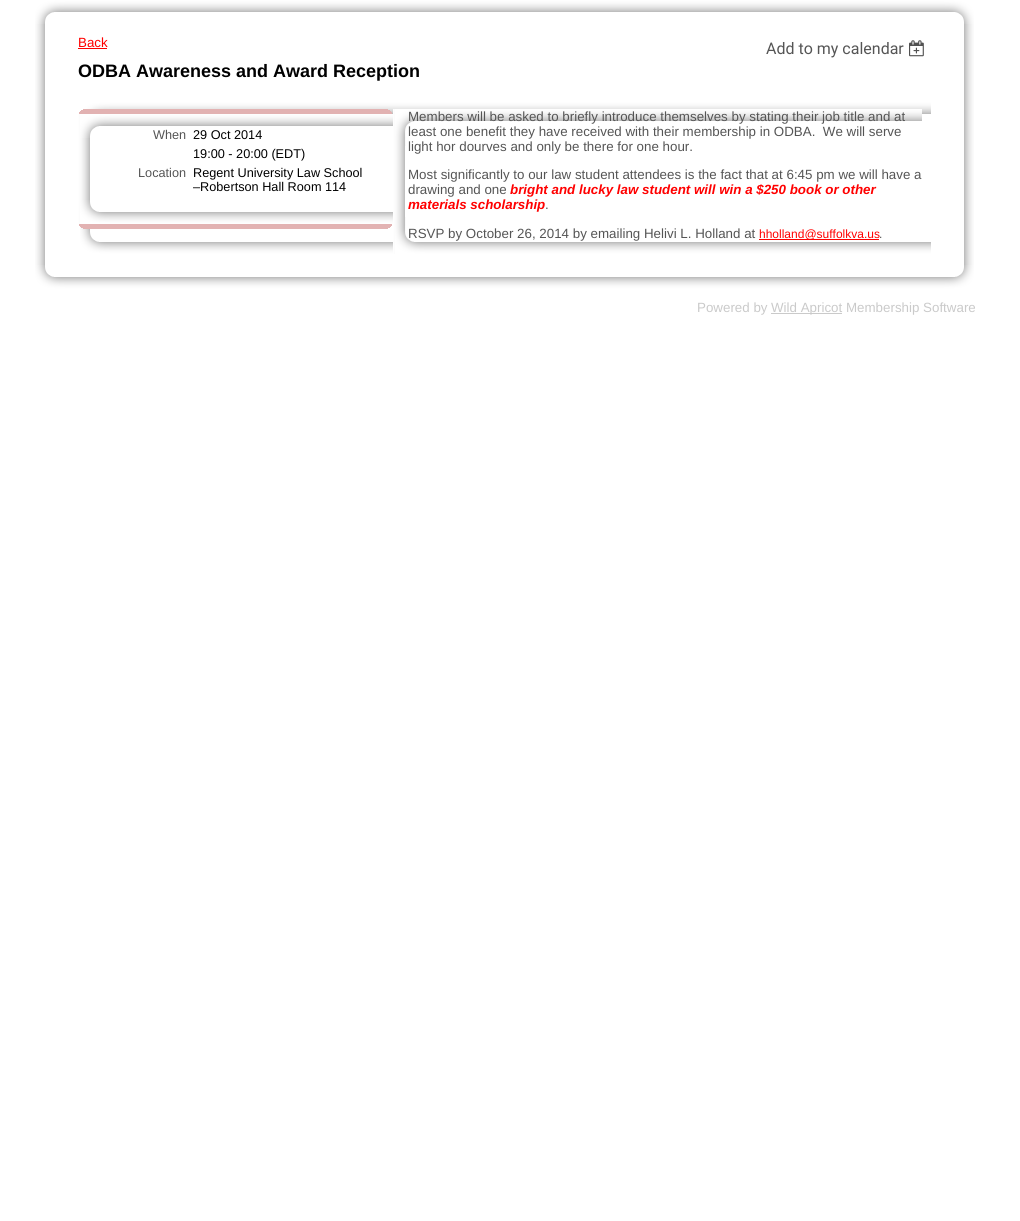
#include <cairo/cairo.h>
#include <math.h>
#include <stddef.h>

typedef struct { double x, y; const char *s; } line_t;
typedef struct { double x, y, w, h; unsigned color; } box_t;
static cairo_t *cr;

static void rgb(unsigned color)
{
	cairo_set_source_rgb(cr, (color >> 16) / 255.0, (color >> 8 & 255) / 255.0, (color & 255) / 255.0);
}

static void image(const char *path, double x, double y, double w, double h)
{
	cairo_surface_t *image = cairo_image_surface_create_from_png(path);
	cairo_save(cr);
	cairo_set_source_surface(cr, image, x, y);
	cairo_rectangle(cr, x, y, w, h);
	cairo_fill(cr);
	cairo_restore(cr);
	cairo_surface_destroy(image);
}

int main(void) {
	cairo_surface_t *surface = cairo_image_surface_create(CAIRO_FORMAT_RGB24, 1020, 1221);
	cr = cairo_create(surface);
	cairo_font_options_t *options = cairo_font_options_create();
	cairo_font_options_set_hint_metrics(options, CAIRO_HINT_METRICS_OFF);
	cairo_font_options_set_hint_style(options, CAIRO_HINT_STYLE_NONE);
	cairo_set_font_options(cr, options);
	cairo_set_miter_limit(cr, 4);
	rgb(0xffffff);
	cairo_paint(cr);
	image("img/1.png", 35, 24, 939, 241);
	image("img/2.png", 35, 0, 939, 24);
	image("img/3.png", 35, 265, 939, 24);
	rgb(0xff0000);
	cairo_rectangle(cr, 78, 48, 29, 1);
	cairo_fill(cr);
	image("img/4.png", 909, 40, 15, 17);
	image("img/5.png", 80, 227, 10, 3);
	image("img/6.png", 80, 102, 851, 24);
	image("img/7.png", 80, 230, 851, 24);
	{
		static const box_t items[] = {
			{83, 109, 305, 1, 0xe2b2b2},
			{81, 110, 309, 1, 0xe2b2b2},
			{80, 111, 311, 1, 0xe2b2b2},
			{79, 112, 313, 2, 0xe2b2b2},
		};
		for (size_t i = 0; i < sizeof items / sizeof *items; i++) {
			rgb(items[i].color);
			cairo_rectangle(cr, items[i].x, items[i].y, items[i].w, items[i].h);
			cairo_fill(cr);
		}
	}
	image("img/8.png", 78, 114, 315, 110);
	image("img/9.png", 80, 114, 313, 24);
	image("img/10.png", 80, 200, 313, 24);
	{
		static const box_t items[] = {
			{79, 224, 313, 2, 0xe2b2b2},
			{80, 226, 311, 1, 0xe2b2b2},
			{81, 227, 309, 1, 0xe2b2b2},
			{83, 228, 305, 1, 0xe2b2b2},
		};
		for (size_t i = 0; i < sizeof items / sizeof *items; i++) {
			rgb(items[i].color);
			cairo_rectangle(cr, items[i].x, items[i].y, items[i].w, items[i].h);
			cairo_fill(cr);
		}
	}
	image("img/11.png", 393, 109, 529, 145);
	image("img/12.png", 395, 109, 527, 37);
	image("img/13.png", 395, 217, 527, 37);
	rgb(0xff0000);
	cairo_rectangle(cr, 759, 239, 120, 1);
	cairo_fill(cr);
	rgb(0xcacaca);
	cairo_rectangle(cr, 771, 313, 71, 1);
	cairo_fill(cr);
	cairo_select_font_face(cr, "Liberation Sans", CAIRO_FONT_SLANT_NORMAL, CAIRO_FONT_WEIGHT_NORMAL);
	cairo_set_font_size(cr, 13.35);
	rgb(0xff0000);
	cairo_move_to(cr, 78, 47);
	cairo_show_text(cr, "Back");
	cairo_select_font_face(cr, "Roboto", CAIRO_FONT_SLANT_NORMAL, CAIRO_FONT_WEIGHT_NORMAL);
	cairo_set_font_size(cr, 16);
	rgb(0x555555);
	cairo_move_to(cr, 766, 54);
	cairo_show_text(cr, "Add to my calendar");
	cairo_select_font_face(cr, "Liberation Sans", CAIRO_FONT_SLANT_NORMAL, CAIRO_FONT_WEIGHT_BOLD);
	cairo_set_font_size(cr, 18);
	rgb(0x000000);
	cairo_move_to(cr, 78, 77);
	cairo_show_text(cr, "ODBA Awareness and Award Reception");
	cairo_select_font_face(cr, "Liberation Sans", CAIRO_FONT_SLANT_NORMAL, CAIRO_FONT_WEIGHT_NORMAL);
	cairo_set_font_size(cr, 12.7);
	rgb(0x555555);
	cairo_move_to(cr, 153, 139);
	cairo_show_text(cr, "When");
	rgb(0x000000);
	cairo_move_to(cr, 193, 139);
	cairo_show_text(cr, "29 Oct 2014");
	cairo_move_to(cr, 193, 158);
	cairo_show_text(cr, "19:00 - 20:00 (EDT)");
	rgb(0x555555);
	cairo_move_to(cr, 138, 177);
	cairo_show_text(cr, "Location");
	rgb(0x000000);
	cairo_move_to(cr, 193, 177);
	cairo_show_text(cr, "Regent University Law School");
	cairo_move_to(cr, 193, 191);
	cairo_show_text(cr, "–Robertson Hall Room 114");
	cairo_set_font_size(cr, 13.35);
	rgb(0x555555);
	{
		static const line_t items[] = {
			{408, 121, "Members will be asked to briefly introduce themselves by stating their job title and at"},
			{408, 136, "least one benefit they have received with their membership in ODBA.  We will serve"},
			{408, 151, "light hor dourves and only be there for one hour."},
			{408, 179, "Most significantly to our law student attendees is the fact that at 6:45 pm we will have a"},
			{408, 194, "drawing and one"},
		};
		for (size_t i = 0; i < sizeof items / sizeof *items; i++) {
			cairo_move_to(cr, items[i].x, items[i].y);
			cairo_show_text(cr, items[i].s);
		}
	}
	cairo_select_font_face(cr, "Liberation Sans", CAIRO_FONT_SLANT_ITALIC, CAIRO_FONT_WEIGHT_BOLD);
	rgb(0xff0000);
	cairo_move_to(cr, 510, 194);
	cairo_show_text(cr, "bright and lucky law student will win a $250 book or other");
	cairo_move_to(cr, 408, 209);
	cairo_show_text(cr, "materials scholarship");
	cairo_select_font_face(cr, "Liberation Sans", CAIRO_FONT_SLANT_NORMAL, CAIRO_FONT_WEIGHT_NORMAL);
	rgb(0x555555);
	cairo_move_to(cr, 545, 209);
	cairo_show_text(cr, ".");
	cairo_move_to(cr, 408, 238);
	cairo_show_text(cr, "RSVP by October 26, 2014 by emailing Helivi L. Holland at");
	cairo_set_font_size(cr, 12);
	rgb(0xff0000);
	cairo_move_to(cr, 759, 238);
	cairo_show_text(cr, "hholland@suffolkva.us");
	rgb(0x555555);
	cairo_move_to(cr, 879, 238);
	cairo_show_text(cr, ".");
	cairo_set_font_size(cr, 13.35);
	rgb(0xcacaca);
	cairo_move_to(cr, 697, 312);
	cairo_show_text(cr, "Powered by");
	cairo_move_to(cr, 771, 312);
	cairo_show_text(cr, "Wild Apricot Membership Software");
	cairo_surface_write_to_png(surface, "page.png");
	cairo_font_options_destroy(options);
	cairo_destroy(cr);
	cairo_surface_destroy(surface);
	return 0;
}
